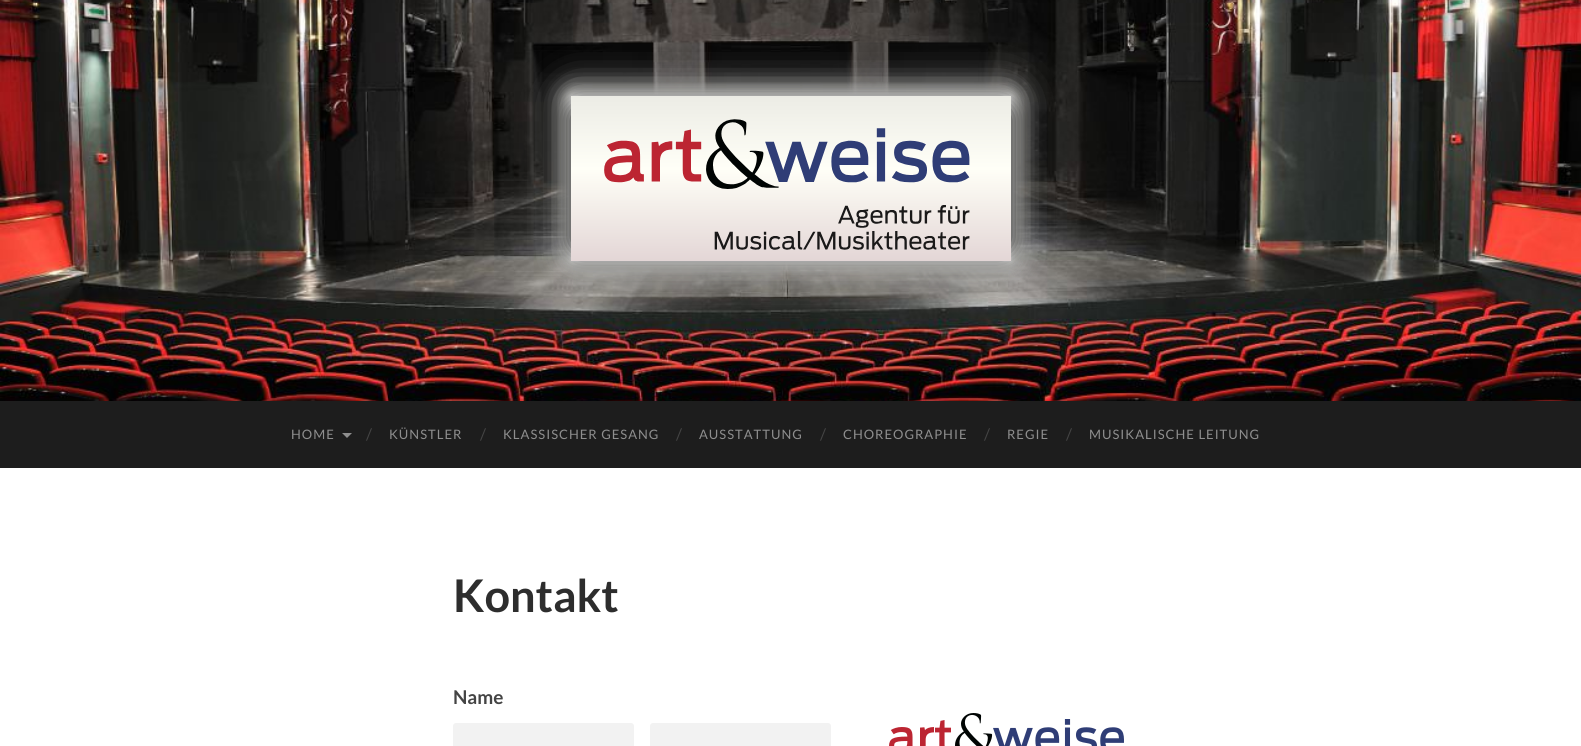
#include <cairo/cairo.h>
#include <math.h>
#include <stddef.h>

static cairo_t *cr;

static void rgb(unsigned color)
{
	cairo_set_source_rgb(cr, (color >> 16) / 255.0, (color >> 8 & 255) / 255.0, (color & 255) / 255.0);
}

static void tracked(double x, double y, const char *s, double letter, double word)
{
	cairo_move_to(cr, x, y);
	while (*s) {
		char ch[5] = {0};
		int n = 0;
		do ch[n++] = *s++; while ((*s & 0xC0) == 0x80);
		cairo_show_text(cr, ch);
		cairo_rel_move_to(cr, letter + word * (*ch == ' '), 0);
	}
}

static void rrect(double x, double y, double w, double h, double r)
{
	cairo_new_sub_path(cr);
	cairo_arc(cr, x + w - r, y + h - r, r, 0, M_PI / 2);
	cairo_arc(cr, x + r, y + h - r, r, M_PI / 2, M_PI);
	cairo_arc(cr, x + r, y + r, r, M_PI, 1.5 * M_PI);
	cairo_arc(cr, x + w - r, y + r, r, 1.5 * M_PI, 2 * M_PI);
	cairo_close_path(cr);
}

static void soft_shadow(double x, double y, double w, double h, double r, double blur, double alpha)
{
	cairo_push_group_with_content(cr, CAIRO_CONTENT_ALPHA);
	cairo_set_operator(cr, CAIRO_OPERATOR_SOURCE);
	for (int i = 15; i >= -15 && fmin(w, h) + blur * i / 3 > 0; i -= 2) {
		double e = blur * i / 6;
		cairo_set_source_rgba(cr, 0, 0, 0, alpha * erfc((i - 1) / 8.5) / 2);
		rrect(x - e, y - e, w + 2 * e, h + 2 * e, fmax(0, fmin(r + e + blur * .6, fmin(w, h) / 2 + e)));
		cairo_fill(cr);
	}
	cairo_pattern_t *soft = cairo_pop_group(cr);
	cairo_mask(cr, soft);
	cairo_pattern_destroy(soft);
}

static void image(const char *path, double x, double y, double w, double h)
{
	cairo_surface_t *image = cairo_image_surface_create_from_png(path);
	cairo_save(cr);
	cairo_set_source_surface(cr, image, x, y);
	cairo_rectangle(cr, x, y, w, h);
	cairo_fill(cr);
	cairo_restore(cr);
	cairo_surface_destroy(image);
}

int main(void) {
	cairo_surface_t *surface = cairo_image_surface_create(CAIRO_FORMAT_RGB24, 1581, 746);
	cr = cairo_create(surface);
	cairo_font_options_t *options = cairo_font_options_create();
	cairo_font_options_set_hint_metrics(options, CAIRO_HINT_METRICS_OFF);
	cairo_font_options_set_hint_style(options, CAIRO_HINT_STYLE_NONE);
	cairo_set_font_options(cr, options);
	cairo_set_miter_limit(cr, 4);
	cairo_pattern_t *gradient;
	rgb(0xffffff);
	cairo_paint(cr);
	image("img/1.png", 0, 0, 1581, 401);
	rgb(0xa6a6a4);
	soft_shadow(571, 96, 440, 165, 0, 24, 1);
	soft_shadow(571, 96, 440, 165, 0, 16, 1);
	soft_shadow(571, 96, 440, 165, 0, 12.5, 1);
	soft_shadow(571, 96, 440, 165, 0, 9, 1);
	soft_shadow(571, 96, 440, 165, 0, 7.5, 1);
	rgb(0xc8c8c7);
	soft_shadow(571, 96, 440, 165, 0, 5, 1);
	soft_shadow(571, 96, 440, 165, 0, 2.5, 1);
	soft_shadow(571, 96, 440, 165, 0, 0.5, 1);
	rgb(0x000000);
	soft_shadow(571, 106, 440, 145, 10, 10, 0.8);
	gradient = cairo_pattern_create_linear(791, 261, 791, 96);
	cairo_pattern_add_color_stop_rgba(gradient, 0, 0.89, 0.839, 0.839, 1);
	cairo_pattern_add_color_stop_rgba(gradient, 0.56, 1, 1, 0.969, 1);
	cairo_pattern_add_color_stop_rgba(gradient, 1, 0.925, 0.925, 0.898, 1);
	cairo_set_source(cr, gradient);
	cairo_pattern_destroy(gradient);
	cairo_rectangle(cr, 571, 96, 440, 165);
	cairo_fill(cr);
	image("img/2.png", 604, 119, 366, 131);
	rgb(0x1d1d1d);
	cairo_rectangle(cr, 0, 401, 1581, 67);
	cairo_fill(cr);
	rgb(0x8e8e8e);
	cairo_new_path(cr);
	cairo_move_to(cr, 342, 433);
	cairo_line_to(cr, 352, 433);
	cairo_line_to(cr, 347, 438);
	cairo_close_path(cr);
	cairo_fill(cr);
	rgb(0xf2f2f2);
	rrect(453, 723, 181, 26, 3);
	cairo_fill(cr);
	rrect(650, 723, 181, 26, 3);
	cairo_fill(cr);
	image("img/3.png", 889, 713, 235, 33);
	cairo_select_font_face(cr, "Lato", CAIRO_FONT_SLANT_NORMAL, CAIRO_FONT_WEIGHT_NORMAL);
	cairo_set_font_size(cr, 13);
	rgb(0x8e8e8e);
	tracked(291, 439, "HOME", 1, 0);
	cairo_set_font_size(cr, 16);
	rgb(0x444444);
	cairo_move_to(cr, 366, 440);
	cairo_show_text(cr, "/");
	cairo_set_font_size(cr, 13);
	rgb(0x8e8e8e);
	tracked(389, 439, "KÜNSTLER", 1, 0);
	cairo_set_font_size(cr, 16);
	rgb(0x444444);
	cairo_move_to(cr, 480, 440);
	cairo_show_text(cr, "/");
	cairo_set_font_size(cr, 13);
	rgb(0x8e8e8e);
	tracked(503, 439, "KLASSISCHER GESANG", 1, 0);
	cairo_set_font_size(cr, 16);
	rgb(0x444444);
	cairo_move_to(cr, 676, 440);
	cairo_show_text(cr, "/");
	cairo_set_font_size(cr, 13);
	rgb(0x8e8e8e);
	tracked(699, 439, "AUSSTATTUNG", 1, 0);
	cairo_set_font_size(cr, 16);
	rgb(0x444444);
	cairo_move_to(cr, 820, 440);
	cairo_show_text(cr, "/");
	cairo_set_font_size(cr, 13);
	rgb(0x8e8e8e);
	tracked(843, 439, "CHOREOGRAPHIE", 1, 0);
	cairo_set_font_size(cr, 16);
	rgb(0x444444);
	cairo_move_to(cr, 984, 440);
	cairo_show_text(cr, "/");
	cairo_set_font_size(cr, 13);
	rgb(0x8e8e8e);
	tracked(1007, 439, "REGIE", 1, 0);
	cairo_set_font_size(cr, 16);
	rgb(0x444444);
	cairo_move_to(cr, 1066, 440);
	cairo_show_text(cr, "/");
	cairo_set_font_size(cr, 13);
	rgb(0x8e8e8e);
	tracked(1089, 439, "MUSIKALISCHE LEITUNG", 1, 0);
	cairo_select_font_face(cr, "Lato", CAIRO_FONT_SLANT_NORMAL, CAIRO_FONT_WEIGHT_BOLD);
	cairo_set_font_size(cr, 45);
	rgb(0x2d2d2d);
	cairo_move_to(cr, 453, 612);
	cairo_show_text(cr, "Kontakt");
	cairo_set_font_size(cr, 19);
	rgb(0x444444);
	cairo_move_to(cr, 453, 704);
	cairo_show_text(cr, "Name");
	cairo_surface_write_to_png(surface, "page.png");
	cairo_font_options_destroy(options);
	cairo_destroy(cr);
	cairo_surface_destroy(surface);
	return 0;
}
